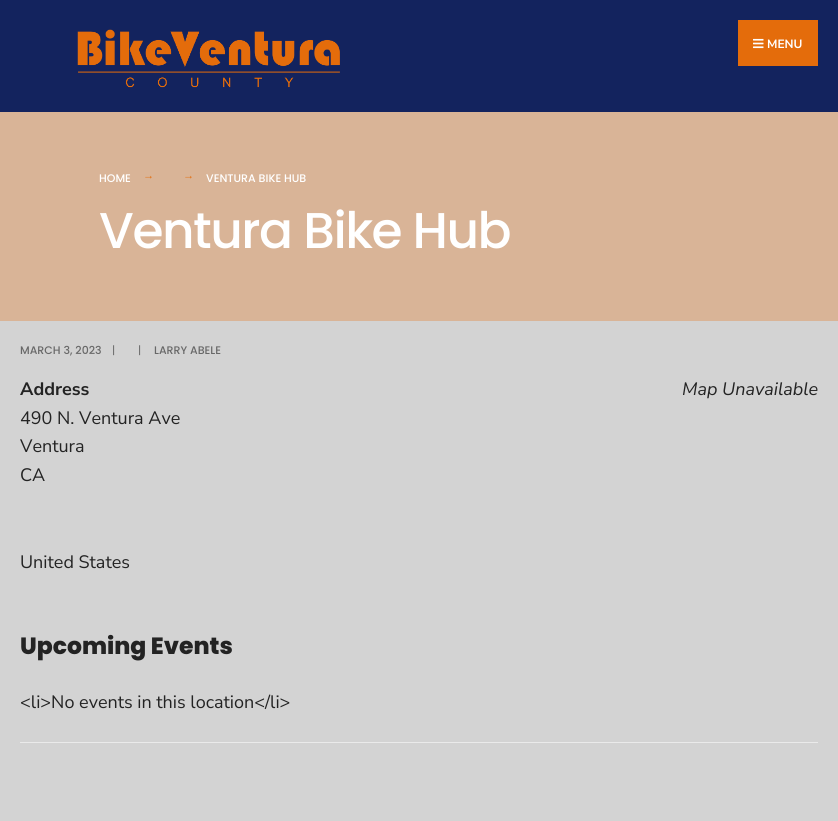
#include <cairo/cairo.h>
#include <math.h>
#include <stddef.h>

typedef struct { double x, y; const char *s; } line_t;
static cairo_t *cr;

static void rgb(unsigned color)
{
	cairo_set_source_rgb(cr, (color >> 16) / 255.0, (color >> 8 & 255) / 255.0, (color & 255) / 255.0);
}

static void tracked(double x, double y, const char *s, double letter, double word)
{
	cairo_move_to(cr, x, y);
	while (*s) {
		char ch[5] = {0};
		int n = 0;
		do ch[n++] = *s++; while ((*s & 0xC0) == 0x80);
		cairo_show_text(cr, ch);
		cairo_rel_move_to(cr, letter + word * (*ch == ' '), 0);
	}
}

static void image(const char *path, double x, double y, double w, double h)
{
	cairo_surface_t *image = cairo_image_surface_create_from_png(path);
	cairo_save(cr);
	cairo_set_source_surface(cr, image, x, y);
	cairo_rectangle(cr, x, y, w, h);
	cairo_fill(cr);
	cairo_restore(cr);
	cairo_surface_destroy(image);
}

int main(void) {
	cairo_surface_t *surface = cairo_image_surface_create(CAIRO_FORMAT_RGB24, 838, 821);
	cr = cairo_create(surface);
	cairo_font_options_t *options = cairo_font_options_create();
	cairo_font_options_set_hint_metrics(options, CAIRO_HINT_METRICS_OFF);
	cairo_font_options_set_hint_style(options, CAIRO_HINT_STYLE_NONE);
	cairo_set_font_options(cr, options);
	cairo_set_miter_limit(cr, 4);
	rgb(0xd3d3d3);
	cairo_paint(cr);
	rgb(0x13235e);
	cairo_rectangle(cr, 0, 0, 838, 112);
	cairo_fill(cr);
	image("img/1.png", 77, 29, 263, 59);
	rgb(0xe46c0b);
	cairo_rectangle(cr, 738, 20, 80, 46);
	cairo_fill(cr);
	image("img/2.png", 753, 38, 11, 11);
	rgb(0xd9b497);
	cairo_rectangle(cr, 0, 112, 838, 209);
	cairo_fill(cr);
	rgb(0xeaeaea);
	cairo_rectangle(cr, 20, 742, 798, 1);
	cairo_fill(cr);
	cairo_select_font_face(cr, "Nunito Sans", CAIRO_FONT_SLANT_NORMAL, CAIRO_FONT_WEIGHT_BOLD);
	cairo_set_font_size(cr, 12);
	rgb(0xffffff);
	cairo_move_to(cr, 767, 48);
	cairo_show_text(cr, "MENU");
	cairo_select_font_face(cr, "Poppins Medium", CAIRO_FONT_SLANT_NORMAL, CAIRO_FONT_WEIGHT_NORMAL);
	cairo_set_font_size(cr, 11);
	cairo_move_to(cr, 99, 182);
	cairo_show_text(cr, "HOME");
	cairo_select_font_face(cr, "Liberation Serif", CAIRO_FONT_SLANT_NORMAL, CAIRO_FONT_WEIGHT_NORMAL);
	rgb(0xe46c0b);
	cairo_move_to(cr, 143, 179);
	cairo_show_text(cr, "→");
	cairo_move_to(cr, 183, 179);
	cairo_show_text(cr, "→");
	cairo_select_font_face(cr, "Poppins Medium", CAIRO_FONT_SLANT_NORMAL, CAIRO_FONT_WEIGHT_NORMAL);
	rgb(0xffffff);
	cairo_move_to(cr, 206, 182);
	cairo_show_text(cr, "VENTURA BIKE HUB");
	cairo_set_font_size(cr, 50.25);
	tracked(99, 248, "Ventura Bike Hub", -1.5, 0);
	cairo_set_font_size(cr, 11);
	rgb(0x686868);
	cairo_move_to(cr, 20, 354);
	cairo_show_text(cr, "MARCH 3, 2023");
	cairo_select_font_face(cr, "Poppins", CAIRO_FONT_SLANT_NORMAL, CAIRO_FONT_WEIGHT_NORMAL);
	cairo_move_to(cr, 112, 354);
	cairo_show_text(cr, "|");
	cairo_move_to(cr, 138, 354);
	cairo_show_text(cr, "|");
	cairo_select_font_face(cr, "Poppins Medium", CAIRO_FONT_SLANT_NORMAL, CAIRO_FONT_WEIGHT_NORMAL);
	cairo_move_to(cr, 154, 354);
	cairo_show_text(cr, "LARRY ABELE");
	cairo_select_font_face(cr, "Nunito Sans", CAIRO_FONT_SLANT_NORMAL, CAIRO_FONT_WEIGHT_BOLD);
	cairo_set_font_size(cr, 18);
	rgb(0x232323);
	cairo_move_to(cr, 20, 395);
	cairo_show_text(cr, "Address");
	cairo_select_font_face(cr, "Nunito Sans", CAIRO_FONT_SLANT_NORMAL, CAIRO_FONT_WEIGHT_NORMAL);
	{
		static const line_t items[] = {
			{20, 424, "490 N. Ventura Ave"},
			{20, 452, "Ventura"},
			{20, 481, "CA"},
			{20, 568, "United States"},
		};
		for (size_t i = 0; i < sizeof items / sizeof *items; i++) {
			cairo_move_to(cr, items[i].x, items[i].y);
			cairo_show_text(cr, items[i].s);
		}
	}
	cairo_select_font_face(cr, "Nunito Sans", CAIRO_FONT_SLANT_ITALIC, CAIRO_FONT_WEIGHT_NORMAL);
	cairo_move_to(cr, 682, 395);
	cairo_show_text(cr, "Map Unavailable");
	cairo_select_font_face(cr, "Poppins ExtraBold", CAIRO_FONT_SLANT_NORMAL, CAIRO_FONT_WEIGHT_NORMAL);
	cairo_set_font_size(cr, 23.5);
	cairo_move_to(cr, 20, 654);
	cairo_show_text(cr, "Upcoming Events");
	cairo_select_font_face(cr, "Nunito Sans", CAIRO_FONT_SLANT_NORMAL, CAIRO_FONT_WEIGHT_NORMAL);
	cairo_set_font_size(cr, 18);
	cairo_move_to(cr, 20, 708);
	cairo_show_text(cr, "<li>No events in this location</li>");
	cairo_surface_write_to_png(surface, "page.png");
	cairo_font_options_destroy(options);
	cairo_destroy(cr);
	cairo_surface_destroy(surface);
	return 0;
}
